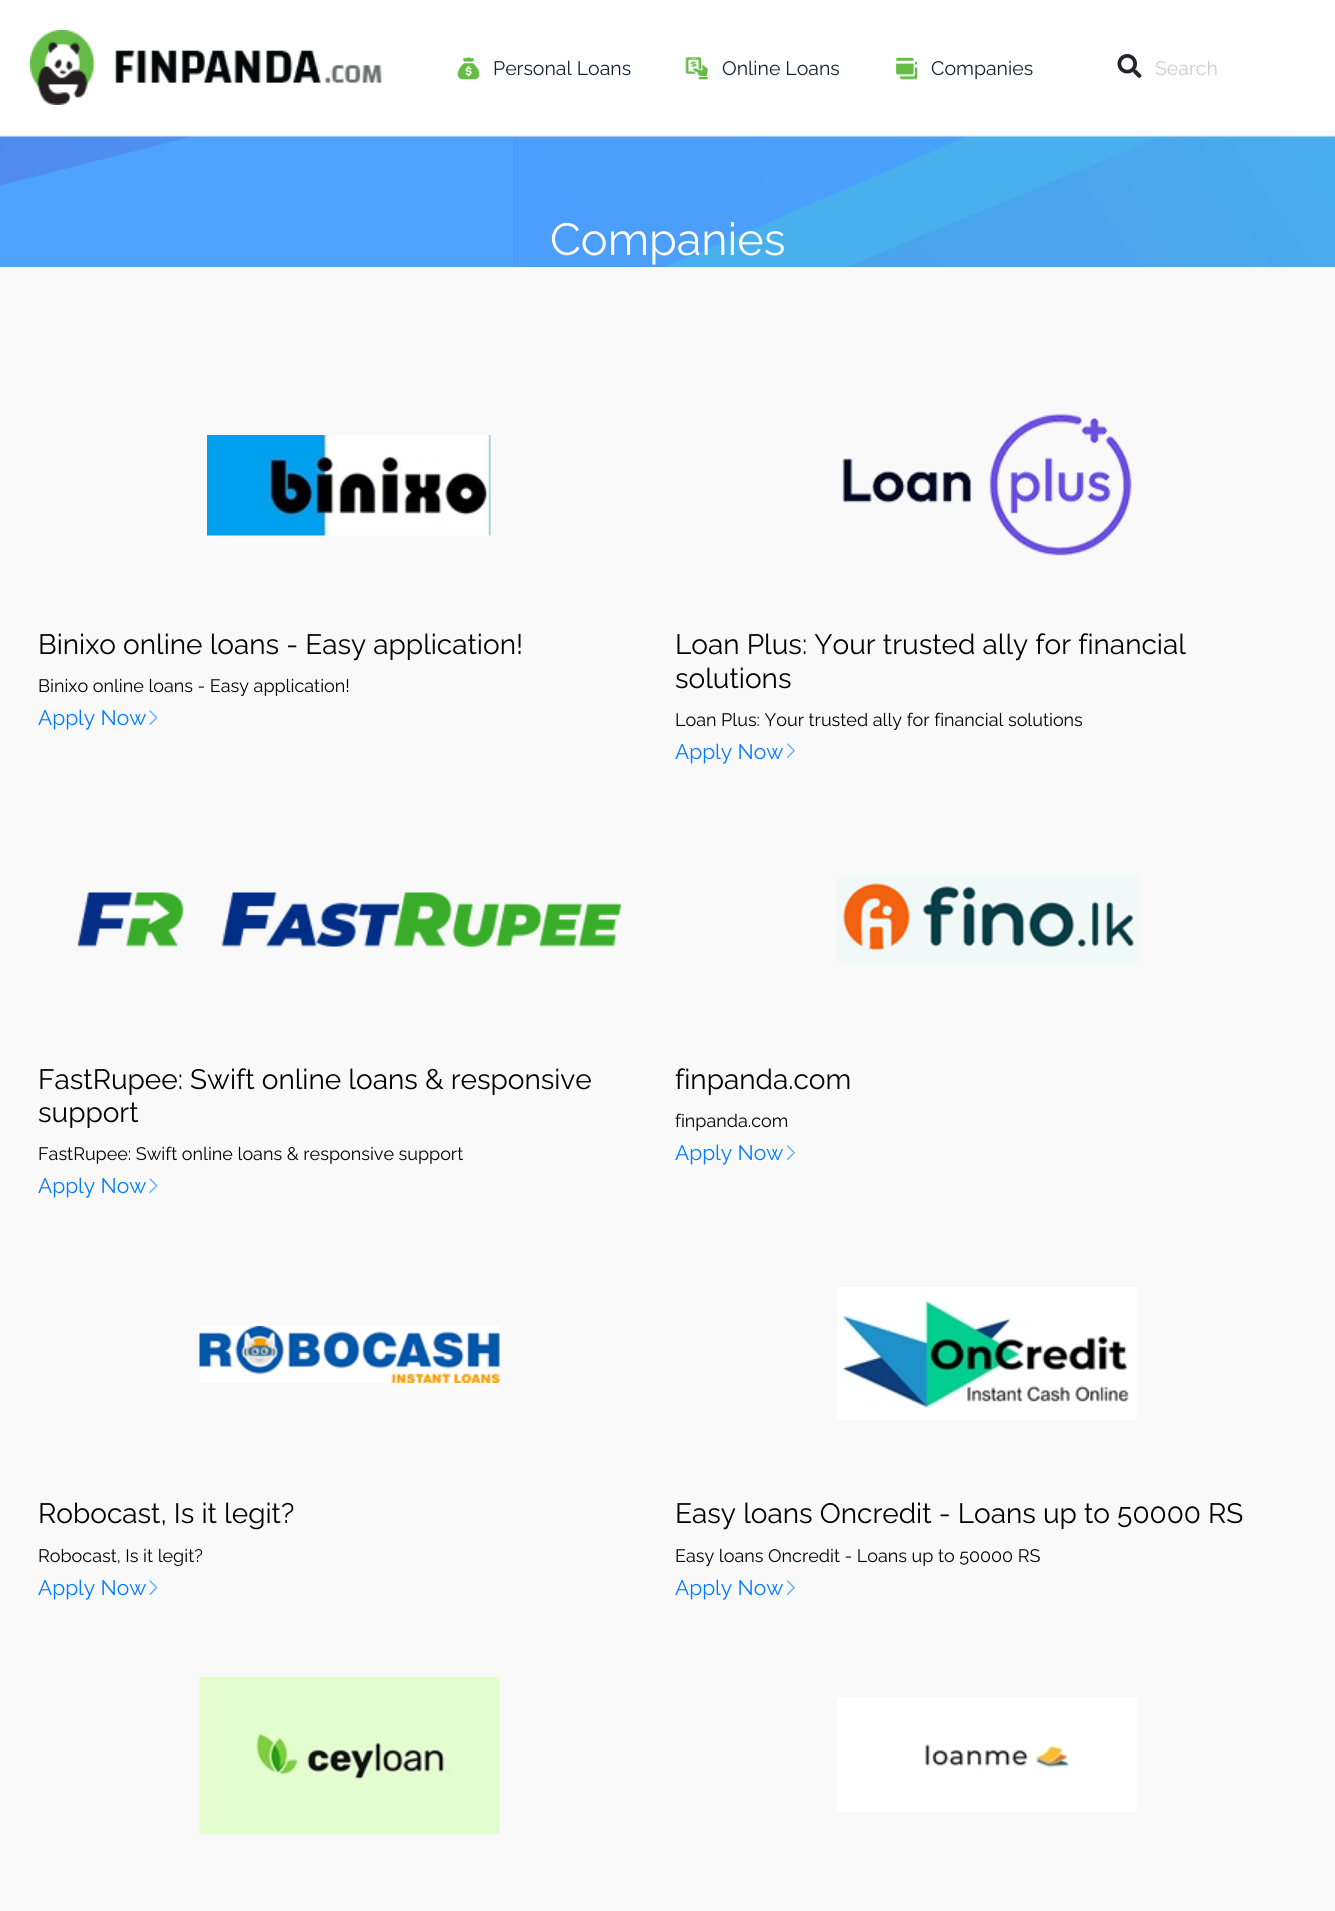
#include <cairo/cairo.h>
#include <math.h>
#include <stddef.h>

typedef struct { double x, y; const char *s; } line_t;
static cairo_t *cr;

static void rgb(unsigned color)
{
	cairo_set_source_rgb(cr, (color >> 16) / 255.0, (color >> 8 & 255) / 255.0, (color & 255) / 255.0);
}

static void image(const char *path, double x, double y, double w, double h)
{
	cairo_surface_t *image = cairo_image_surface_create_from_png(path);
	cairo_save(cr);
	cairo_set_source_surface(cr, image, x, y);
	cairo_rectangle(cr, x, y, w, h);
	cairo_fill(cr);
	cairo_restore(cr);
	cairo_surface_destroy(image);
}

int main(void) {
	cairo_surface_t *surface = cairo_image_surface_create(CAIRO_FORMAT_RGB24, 1335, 1911);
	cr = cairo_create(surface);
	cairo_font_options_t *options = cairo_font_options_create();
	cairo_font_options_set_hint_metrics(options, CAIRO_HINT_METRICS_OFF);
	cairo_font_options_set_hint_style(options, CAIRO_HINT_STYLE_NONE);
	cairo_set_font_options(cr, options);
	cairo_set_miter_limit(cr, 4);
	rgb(0xf9f9f9);
	cairo_paint(cr);
	rgb(0xffffff);
	cairo_rectangle(cr, 0, 0, 1335, 135);
	cairo_fill(cr);
	rgb(0xf2f2f2);
	cairo_rectangle(cr, 0, 135, 1335, 2);
	cairo_fill(cr);
	image("img/1.png", 30, 30, 352, 75);
	image("img/2.png", 457, 57, 23, 23);
	image("img/3.png", 685, 57, 23, 23);
	image("img/4.png", 895, 57, 23, 23);
	image("img/5.png", 1117, 54, 25, 24);
	image("img/6.png", 0, 136, 1335, 131);
	image("img/7.png", 207, 435, 284, 101);
	image("img/8.png", 149, 710, 9, 15);
	image("img/9.png", 842, 413, 290, 143);
	image("img/10.png", 786, 743, 9, 15);
	image("img/11.png", 77, 892, 545, 55);
	image("img/8.png", 149, 1178, 9, 15);
	image("img/12.png", 837, 876, 300, 87);
	image("img/10.png", 786, 1145, 9, 15);
	image("img/13.png", 199, 1326, 301, 57);
	image("img/8.png", 149, 1580, 9, 15);
	image("img/14.png", 837, 1287, 300, 133);
	image("img/10.png", 786, 1580, 9, 15);
	image("img/15.png", 199, 1677, 301, 158);
	image("img/16.png", 837, 1698, 300, 114);
	cairo_select_font_face(cr, "Raleway Thin", CAIRO_FONT_SLANT_NORMAL, CAIRO_FONT_WEIGHT_NORMAL);
	cairo_set_font_size(cr, 19.5);
	rgb(0x132231);
	{
		static const line_t items[] = {
			{493, 75, "Personal Loans"},
			{722, 75, "Online Loans"},
			{931, 75, "Companies"},
		};
		for (size_t i = 0; i < sizeof items / sizeof *items; i++) {
			cairo_move_to(cr, items[i].x, items[i].y);
			cairo_show_text(cr, items[i].s);
		}
	}
	rgb(0xcccccc);
	cairo_move_to(cr, 1155, 75);
	cairo_show_text(cr, "Search");
	cairo_set_font_size(cr, 45);
	rgb(0xffffff);
	cairo_move_to(cr, 550, 255);
	cairo_show_text(cr, "Companies");
	cairo_set_font_size(cr, 28);
	rgb(0x000000);
	cairo_move_to(cr, 38, 654);
	cairo_show_text(cr, "Binixo online loans - Easy application!");
	cairo_set_font_size(cr, 18);
	cairo_move_to(cr, 38, 692);
	cairo_show_text(cr, "Binixo online loans - Easy application!");
	cairo_set_font_size(cr, 21);
	rgb(0x007bff);
	cairo_move_to(cr, 38, 725);
	cairo_show_text(cr, "Apply Now");
	cairo_set_font_size(cr, 28);
	rgb(0x000000);
	cairo_move_to(cr, 675, 654);
	cairo_show_text(cr, "Loan Plus: Your trusted ally for financial");
	cairo_move_to(cr, 675, 688);
	cairo_show_text(cr, "solutions");
	cairo_set_font_size(cr, 18);
	cairo_move_to(cr, 675, 726);
	cairo_show_text(cr, "Loan Plus: Your trusted ally for financial solutions");
	cairo_set_font_size(cr, 21);
	rgb(0x007bff);
	cairo_move_to(cr, 675, 759);
	cairo_show_text(cr, "Apply Now");
	cairo_set_font_size(cr, 28);
	rgb(0x000000);
	cairo_move_to(cr, 38, 1089);
	cairo_show_text(cr, "FastRupee: Swift online loans & responsive");
	cairo_move_to(cr, 38, 1122);
	cairo_show_text(cr, "support");
	cairo_set_font_size(cr, 18);
	cairo_move_to(cr, 38, 1160);
	cairo_show_text(cr, "FastRupee: Swift online loans & responsive support");
	cairo_set_font_size(cr, 21);
	rgb(0x007bff);
	cairo_move_to(cr, 38, 1193);
	cairo_show_text(cr, "Apply Now");
	cairo_set_font_size(cr, 28);
	rgb(0x000000);
	cairo_move_to(cr, 675, 1089);
	cairo_show_text(cr, "finpanda.com");
	cairo_set_font_size(cr, 18);
	cairo_move_to(cr, 675, 1127);
	cairo_show_text(cr, "finpanda.com");
	cairo_set_font_size(cr, 21);
	rgb(0x007bff);
	cairo_move_to(cr, 675, 1160);
	cairo_show_text(cr, "Apply Now");
	cairo_set_font_size(cr, 28);
	rgb(0x000000);
	cairo_move_to(cr, 38, 1523);
	cairo_show_text(cr, "Robocast, Is it legit?");
	cairo_set_font_size(cr, 18);
	cairo_move_to(cr, 38, 1562);
	cairo_show_text(cr, "Robocast, Is it legit?");
	cairo_set_font_size(cr, 21);
	rgb(0x007bff);
	cairo_move_to(cr, 38, 1595);
	cairo_show_text(cr, "Apply Now");
	cairo_set_font_size(cr, 28);
	rgb(0x000000);
	cairo_move_to(cr, 675, 1523);
	cairo_show_text(cr, "Easy loans Oncredit - Loans up to 50000 RS");
	cairo_set_font_size(cr, 18);
	cairo_move_to(cr, 675, 1562);
	cairo_show_text(cr, "Easy loans Oncredit - Loans up to 50000 RS");
	cairo_set_font_size(cr, 21);
	rgb(0x007bff);
	cairo_move_to(cr, 675, 1595);
	cairo_show_text(cr, "Apply Now");
	cairo_surface_write_to_png(surface, "page.png");
	cairo_font_options_destroy(options);
	cairo_destroy(cr);
	cairo_surface_destroy(surface);
	return 0;
}
